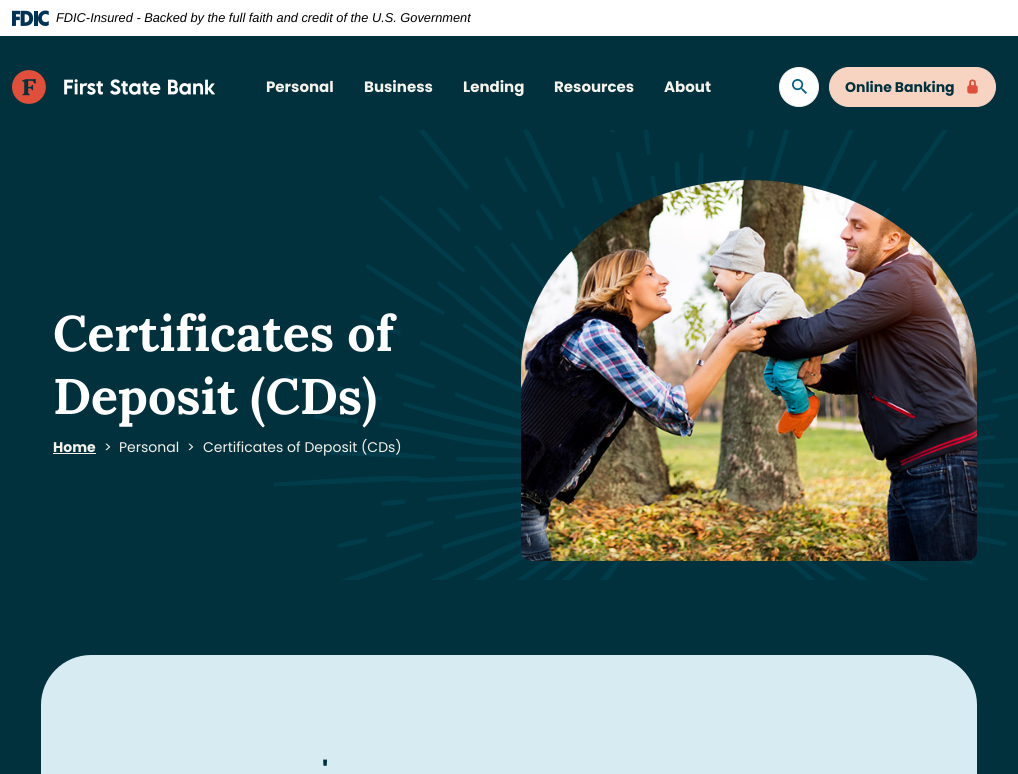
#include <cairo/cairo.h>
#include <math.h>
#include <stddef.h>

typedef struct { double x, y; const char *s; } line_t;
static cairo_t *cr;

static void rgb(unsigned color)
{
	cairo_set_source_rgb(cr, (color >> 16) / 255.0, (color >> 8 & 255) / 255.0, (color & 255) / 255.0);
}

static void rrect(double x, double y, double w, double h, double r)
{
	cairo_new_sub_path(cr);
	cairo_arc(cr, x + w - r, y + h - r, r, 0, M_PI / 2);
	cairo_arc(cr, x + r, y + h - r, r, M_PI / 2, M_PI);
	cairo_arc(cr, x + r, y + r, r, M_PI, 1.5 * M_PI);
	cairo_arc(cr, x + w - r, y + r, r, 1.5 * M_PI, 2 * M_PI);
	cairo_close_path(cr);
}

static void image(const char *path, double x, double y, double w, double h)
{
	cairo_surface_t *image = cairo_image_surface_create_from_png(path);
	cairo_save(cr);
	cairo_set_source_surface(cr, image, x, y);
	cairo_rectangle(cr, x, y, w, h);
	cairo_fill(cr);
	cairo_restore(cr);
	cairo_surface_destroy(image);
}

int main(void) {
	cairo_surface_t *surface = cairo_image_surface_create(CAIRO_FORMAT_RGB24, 1018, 774);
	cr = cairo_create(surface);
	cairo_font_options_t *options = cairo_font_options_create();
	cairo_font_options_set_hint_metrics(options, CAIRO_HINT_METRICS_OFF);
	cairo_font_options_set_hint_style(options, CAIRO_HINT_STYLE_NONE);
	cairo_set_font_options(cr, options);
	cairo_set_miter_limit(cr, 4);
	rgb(0x00313d);
	cairo_paint(cr);
	rgb(0xffffff);
	cairo_rectangle(cr, 0, 0, 1018, 36);
	cairo_fill(cr);
	image("img/1.png", 12, 10, 37, 16);
	image("img/2.png", 12, 70, 203, 34);
	cairo_arc(cr, 799, 87, 19.5, 0, 2 * M_PI);
	cairo_fill_preserve(cr);
	rgb(0xf4f2eb);
	cairo_set_line_width(cr, 1);
	cairo_stroke(cr);
	image("img/3.png", 792, 79, 15, 15);
	rgb(0xf7d3c2);
	rrect(829.5, 67.5, 166, 39, 19.5);
	cairo_fill_preserve(cr);
	cairo_stroke(cr);
	image("img/4.png", 967, 79, 11, 15);
	rgb(0xf4f2eb);
	cairo_rectangle(cr, 53, 453, 43, 1);
	cairo_fill(cr);
	image("img/5.png", 274, 130, 744, 450);
	image("img/6.png", 521, 180, 456, 381);
	rgb(0xd7ebf2);
	rrect(41, 655, 936, 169, 50);
	cairo_fill(cr);
	cairo_select_font_face(cr, "Liberation Sans", CAIRO_FONT_SLANT_ITALIC, CAIRO_FONT_WEIGHT_NORMAL);
	cairo_set_font_size(cr, 12.8);
	rgb(0x000000);
	cairo_move_to(cr, 56, 22);
	cairo_show_text(cr, "FDIC-Insured - Backed by the full faith and credit of the U.S. Government");
	cairo_select_font_face(cr, "Poppins", CAIRO_FONT_SLANT_NORMAL, CAIRO_FONT_WEIGHT_BOLD);
	cairo_set_font_size(cr, 15);
	rgb(0xf4f2eb);
	{
		static const line_t items[] = {
			{266, 92, "Personal"},
			{364, 92, "Business"},
			{463, 92, "Lending"},
			{554, 92, "Resources"},
			{664, 92, "About"},
		};
		for (size_t i = 0; i < sizeof items / sizeof *items; i++) {
			cairo_move_to(cr, items[i].x, items[i].y);
			cairo_show_text(cr, items[i].s);
		}
	}
	cairo_set_font_size(cr, 14);
	rgb(0x00313d);
	cairo_move_to(cr, 845, 92);
	cairo_show_text(cr, "Online Banking");
	cairo_select_font_face(cr, "Lora", CAIRO_FONT_SLANT_NORMAL, CAIRO_FONT_WEIGHT_BOLD);
	cairo_set_font_size(cr, 50);
	rgb(0xffffff);
	cairo_move_to(cr, 53, 351);
	cairo_show_text(cr, "Certificates of");
	cairo_move_to(cr, 53, 414);
	cairo_show_text(cr, "Deposit (CDs)");
	cairo_select_font_face(cr, "Poppins", CAIRO_FONT_SLANT_NORMAL, CAIRO_FONT_WEIGHT_BOLD);
	cairo_set_font_size(cr, 14);
	rgb(0xf4f2eb);
	cairo_move_to(cr, 53, 452);
	cairo_show_text(cr, "Home");
	cairo_select_font_face(cr, "Poppins", CAIRO_FONT_SLANT_NORMAL, CAIRO_FONT_WEIGHT_NORMAL);
	{
		static const line_t items[] = {
			{104, 452, ">"},
			{119, 452, "Personal"},
			{187, 452, ">"},
			{203, 452, "Certificates of Deposit (CDs)"},
		};
		for (size_t i = 0; i < sizeof items / sizeof *items; i++) {
			cairo_move_to(cr, items[i].x, items[i].y);
			cairo_show_text(cr, items[i].s);
		}
	}
	cairo_select_font_face(cr, "Poppins", CAIRO_FONT_SLANT_NORMAL, CAIRO_FONT_WEIGHT_BOLD);
	cairo_set_font_size(cr, 28);
	rgb(0x00313d);
	cairo_move_to(cr, 322, 782);
	cairo_show_text(cr, "'");
	cairo_surface_write_to_png(surface, "page.png");
	cairo_font_options_destroy(options);
	cairo_destroy(cr);
	cairo_surface_destroy(surface);
	return 0;
}
